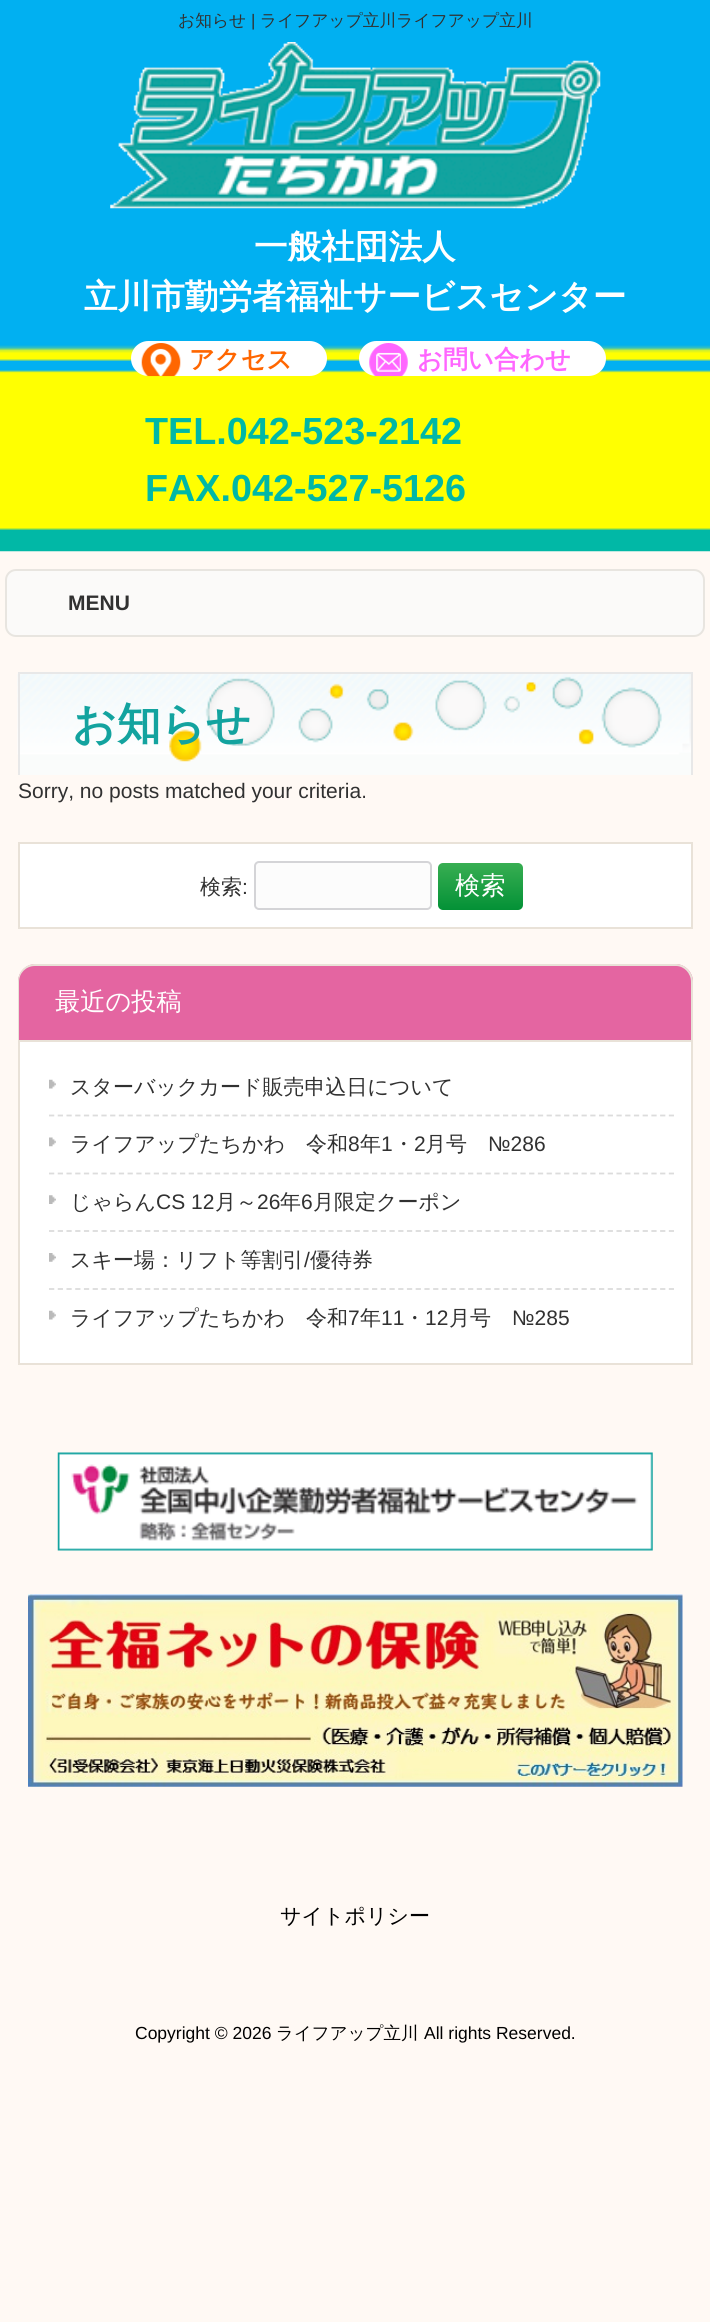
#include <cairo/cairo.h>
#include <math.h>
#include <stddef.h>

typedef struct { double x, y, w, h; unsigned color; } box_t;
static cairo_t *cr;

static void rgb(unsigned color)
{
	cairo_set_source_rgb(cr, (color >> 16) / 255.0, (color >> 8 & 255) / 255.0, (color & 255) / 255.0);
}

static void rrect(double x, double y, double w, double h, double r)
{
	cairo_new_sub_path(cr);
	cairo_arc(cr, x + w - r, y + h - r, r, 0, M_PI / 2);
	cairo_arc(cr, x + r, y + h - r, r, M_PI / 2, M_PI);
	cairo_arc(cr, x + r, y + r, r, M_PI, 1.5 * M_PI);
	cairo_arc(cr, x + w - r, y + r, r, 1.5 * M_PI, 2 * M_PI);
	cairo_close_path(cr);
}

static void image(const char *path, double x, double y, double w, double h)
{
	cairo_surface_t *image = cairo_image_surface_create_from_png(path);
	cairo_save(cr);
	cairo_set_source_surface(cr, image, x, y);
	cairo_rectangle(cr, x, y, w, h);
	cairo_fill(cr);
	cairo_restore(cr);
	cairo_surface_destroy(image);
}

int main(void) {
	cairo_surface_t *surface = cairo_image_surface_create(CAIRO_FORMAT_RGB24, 710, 2322);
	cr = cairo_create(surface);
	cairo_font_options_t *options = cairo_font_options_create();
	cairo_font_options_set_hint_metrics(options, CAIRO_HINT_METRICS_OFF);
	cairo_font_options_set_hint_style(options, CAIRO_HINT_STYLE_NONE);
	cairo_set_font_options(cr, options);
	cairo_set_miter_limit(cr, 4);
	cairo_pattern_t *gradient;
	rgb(0xfff9f4);
	cairo_paint(cr);
	image("img/1.png", 0, 0, 710, 552);
	image("img/2.png", 110, 42, 491, 167);
	rgb(0xffffff);
	rrect(131, 341, 196, 35, 17.5);
	cairo_fill(cr);
	image("img/3.png", 141, 343, 40, 34);
	rrect(359, 341, 247, 35, 17.5);
	cairo_fill(cr);
	image("img/4.png", 369, 343, 39, 34);
	rgb(0xfbfaf9);
	rrect(6, 570, 698, 66, 10);
	cairo_fill_preserve(cr);
	rgb(0xe8e5e0);
	cairo_stroke(cr);
	rgb(0xfafcfb);
	cairo_rectangle(cr, 20, 752, 671, 23);
	cairo_fill(cr);
	image("img/5.png", 17, 674, 674, 88);
	{
		static const box_t items[] = {
			{18, 672, 675, 2, 0xe8e8e8},
			{691, 672, 2, 103, 0xe8e8e8},
			{18, 672, 2, 103, 0xe8e8e8},
		};
		for (size_t i = 0; i < sizeof items / sizeof *items; i++) {
			rgb(items[i].color);
			cairo_rectangle(cr, items[i].x, items[i].y, items[i].w, items[i].h);
			cairo_fill(cr);
		}
	}
	rgb(0xffffff);
	cairo_rectangle(cr, 19, 843, 673, 85);
	cairo_fill_preserve(cr);
	rgb(0xe9e2d8);
	cairo_stroke(cr);
	rgb(0xfcfcfc);
	rrect(255, 862, 176, 47, 4);
	cairo_fill_preserve(cr);
	rgb(0xd4d4d7);
	cairo_stroke(cr);
	gradient = cairo_pattern_create_linear(480, 863, 480, 910);
	cairo_pattern_add_color_stop_rgba(gradient, 0, 0.22, 0.682, 0.322, 1);
	cairo_pattern_add_color_stop_rgba(gradient, 1, 0.012, 0.569, 0.212, 1);
	cairo_set_source(cr, gradient);
	cairo_pattern_destroy(gradient);
	rrect(438, 863, 85, 47, 5);
	cairo_fill(cr);
	rgb(0xe465a1);
	cairo_new_path(cr);
	cairo_move_to(cr, 36, 964);
	cairo_line_to(cr, 675, 964);
	cairo_curve_to(cr, 685, 964, 693, 972, 693, 982);
	cairo_line_to(cr, 693, 1040);
	cairo_line_to(cr, 18, 1040);
	cairo_line_to(cr, 18, 982);
	cairo_curve_to(cr, 18, 972, 26, 964, 36, 964);
	cairo_close_path(cr);
	cairo_fill(cr);
	rgb(0xe9e2d8);
	cairo_set_fill_rule(cr, CAIRO_FILL_RULE_EVEN_ODD);
	cairo_new_path(cr);
	cairo_move_to(cr, 35, 964);
	cairo_line_to(cr, 676, 964);
	cairo_curve_to(cr, 685, 964, 693, 972, 693, 982);
	cairo_line_to(cr, 693, 1040);
	cairo_line_to(cr, 18, 1040);
	cairo_line_to(cr, 18, 982);
	cairo_curve_to(cr, 18, 972, 25, 964, 35, 964);
	cairo_close_path(cr);
	cairo_move_to(cr, 35, 966);
	cairo_line_to(cr, 676, 966);
	cairo_curve_to(cr, 684, 966, 691, 973, 691, 982);
	cairo_line_to(cr, 691, 1040);
	cairo_line_to(cr, 19, 1040);
	cairo_line_to(cr, 19, 982);
	cairo_curve_to(cr, 19, 973, 26, 966, 35, 966);
	cairo_close_path(cr);
	cairo_fill(cr);
	rgb(0xffffff);
	cairo_rectangle(cr, 19, 1041, 673, 323);
	cairo_fill_preserve(cr);
	rgb(0xe9e2d8);
	cairo_stroke(cr);
	image("img/6.png", 49, 1079, 7, 10);
	cairo_new_path(cr);
	cairo_move_to(cr, 49, 1115.5);
	cairo_line_to(cr, 674, 1115.5);
	rgb(0xdcdcdc);
	cairo_set_line_width(cr, 1.8);
	cairo_set_dash(cr, (double[]){5.25, 3.48}, 2, 0);
	cairo_stroke(cr);
	image("img/7.png", 49, 1137, 7, 10);
	cairo_new_path(cr);
	cairo_move_to(cr, 49, 1173.5);
	cairo_line_to(cr, 674, 1173.5);
	cairo_stroke(cr);
	image("img/8.png", 49, 1195, 7, 9);
	cairo_new_path(cr);
	cairo_move_to(cr, 49, 1231);
	cairo_line_to(cr, 674, 1231);
	cairo_stroke(cr);
	image("img/9.png", 49, 1253, 7, 9);
	cairo_new_path(cr);
	cairo_move_to(cr, 49, 1289);
	cairo_line_to(cr, 674, 1289);
	cairo_stroke(cr);
	image("img/6.png", 49, 1310, 7, 10);
	image("img/10.png", 57, 1452, 596, 99);
	image("img/11.png", 28, 1594, 655, 193);
	cairo_select_font_face(cr, "WenQuanYi Zen Hei Medium", CAIRO_FONT_SLANT_NORMAL, CAIRO_FONT_WEIGHT_NORMAL);
	cairo_set_font_size(cr, 16.75);
	rgb(0x313131);
	cairo_move_to(cr, 178, 26);
	cairo_show_text(cr, "お知らせ");
	cairo_select_font_face(cr, "Liberation Sans", CAIRO_FONT_SLANT_NORMAL, CAIRO_FONT_WEIGHT_NORMAL);
	cairo_move_to(cr, 251, 26);
	cairo_show_text(cr, "|");
	cairo_select_font_face(cr, "WenQuanYi Zen Hei Medium", CAIRO_FONT_SLANT_NORMAL, CAIRO_FONT_WEIGHT_NORMAL);
	cairo_move_to(cr, 260, 26);
	cairo_show_text(cr, "ライフアップ立川ライフアップ立川");
	cairo_select_font_face(cr, "WenQuanYi Zen Hei", CAIRO_FONT_SLANT_NORMAL, CAIRO_FONT_WEIGHT_BOLD);
	cairo_set_font_size(cr, 33.6);
	rgb(0xffffff);
	cairo_move_to(cr, 254, 258);
	cairo_show_text(cr, "一般社団法人");
	cairo_move_to(cr, 84, 308);
	cairo_show_text(cr, "立川市勤労者福祉サービスセンター");
	cairo_set_font_size(cr, 25.25);
	rgb(0xff6600);
	cairo_move_to(cr, 189, 368);
	cairo_show_text(cr, "アクセス");
	rgb(0xff66ff);
	cairo_move_to(cr, 417, 368);
	cairo_show_text(cr, "お問い合わせ");
	cairo_select_font_face(cr, "Liberation Sans", CAIRO_FONT_SLANT_NORMAL, CAIRO_FONT_WEIGHT_BOLD);
	cairo_set_font_size(cr, 37.75);
	rgb(0x00b8a6);
	cairo_move_to(cr, 145, 444);
	cairo_show_text(cr, "TEL.042-523-2142");
	cairo_move_to(cr, 145, 501);
	cairo_show_text(cr, "FAX.042-527-5126");
	cairo_set_font_size(cr, 21);
	rgb(0x313131);
	cairo_move_to(cr, 68, 610);
	cairo_show_text(cr, "MENU");
	cairo_select_font_face(cr, "WenQuanYi Zen Hei", CAIRO_FONT_SLANT_NORMAL, CAIRO_FONT_WEIGHT_BOLD);
	cairo_set_font_size(cr, 44);
	rgb(0x13a39f);
	cairo_move_to(cr, 72, 739);
	cairo_show_text(cr, "お知らせ");
	cairo_select_font_face(cr, "Liberation Sans", CAIRO_FONT_SLANT_NORMAL, CAIRO_FONT_WEIGHT_NORMAL);
	cairo_set_font_size(cr, 21);
	rgb(0x313131);
	cairo_move_to(cr, 18, 798);
	cairo_show_text(cr, "Sorry, no posts matched your criteria.");
	cairo_select_font_face(cr, "WenQuanYi Zen Hei Medium", CAIRO_FONT_SLANT_NORMAL, CAIRO_FONT_WEIGHT_NORMAL);
	cairo_move_to(cr, 200, 894);
	cairo_show_text(cr, "検索");
	cairo_select_font_face(cr, "Liberation Sans", CAIRO_FONT_SLANT_NORMAL, CAIRO_FONT_WEIGHT_NORMAL);
	cairo_move_to(cr, 242, 894);
	cairo_show_text(cr, ":");
	cairo_select_font_face(cr, "WenQuanYi Zen Hei Medium", CAIRO_FONT_SLANT_NORMAL, CAIRO_FONT_WEIGHT_NORMAL);
	cairo_set_font_size(cr, 25.25);
	rgb(0xffffff);
	cairo_move_to(cr, 455, 894);
	cairo_show_text(cr, "検索");
	cairo_move_to(cr, 55, 1010);
	cairo_show_text(cr, "最近の投稿");
	cairo_set_font_size(cr, 21);
	rgb(0x313131);
	cairo_move_to(cr, 70, 1094);
	cairo_show_text(cr, "スターバックカード販売申込日について");
	cairo_move_to(cr, 70, 1151);
	cairo_show_text(cr, "ライフアップたちかわ　令和");
	cairo_select_font_face(cr, "Liberation Sans", CAIRO_FONT_SLANT_NORMAL, CAIRO_FONT_WEIGHT_NORMAL);
	cairo_move_to(cr, 348, 1151);
	cairo_show_text(cr, "8");
	cairo_select_font_face(cr, "WenQuanYi Zen Hei Medium", CAIRO_FONT_SLANT_NORMAL, CAIRO_FONT_WEIGHT_NORMAL);
	cairo_move_to(cr, 360, 1151);
	cairo_show_text(cr, "年");
	cairo_select_font_face(cr, "Liberation Sans", CAIRO_FONT_SLANT_NORMAL, CAIRO_FONT_WEIGHT_NORMAL);
	cairo_move_to(cr, 381, 1151);
	cairo_show_text(cr, "1");
	cairo_select_font_face(cr, "WenQuanYi Zen Hei Medium", CAIRO_FONT_SLANT_NORMAL, CAIRO_FONT_WEIGHT_NORMAL);
	cairo_move_to(cr, 393, 1151);
	cairo_show_text(cr, "・");
	cairo_select_font_face(cr, "Liberation Sans", CAIRO_FONT_SLANT_NORMAL, CAIRO_FONT_WEIGHT_NORMAL);
	cairo_move_to(cr, 414, 1151);
	cairo_show_text(cr, "2");
	cairo_select_font_face(cr, "WenQuanYi Zen Hei Medium", CAIRO_FONT_SLANT_NORMAL, CAIRO_FONT_WEIGHT_NORMAL);
	cairo_move_to(cr, 425, 1151);
	cairo_show_text(cr, "月号");
	cairo_select_font_face(cr, "Liberation Sans", CAIRO_FONT_SLANT_NORMAL, CAIRO_FONT_WEIGHT_NORMAL);
	cairo_move_to(cr, 488, 1151);
	cairo_show_text(cr, "№286");
	cairo_select_font_face(cr, "WenQuanYi Zen Hei Medium", CAIRO_FONT_SLANT_NORMAL, CAIRO_FONT_WEIGHT_NORMAL);
	cairo_move_to(cr, 70, 1209);
	cairo_show_text(cr, "じゃらん");
	cairo_select_font_face(cr, "Liberation Sans", CAIRO_FONT_SLANT_NORMAL, CAIRO_FONT_WEIGHT_NORMAL);
	cairo_move_to(cr, 156, 1209);
	cairo_show_text(cr, "CS 12");
	cairo_select_font_face(cr, "WenQuanYi Zen Hei Medium", CAIRO_FONT_SLANT_NORMAL, CAIRO_FONT_WEIGHT_NORMAL);
	cairo_move_to(cr, 215, 1209);
	cairo_show_text(cr, "月～");
	cairo_select_font_face(cr, "Liberation Sans", CAIRO_FONT_SLANT_NORMAL, CAIRO_FONT_WEIGHT_NORMAL);
	cairo_move_to(cr, 257, 1209);
	cairo_show_text(cr, "26");
	cairo_select_font_face(cr, "WenQuanYi Zen Hei Medium", CAIRO_FONT_SLANT_NORMAL, CAIRO_FONT_WEIGHT_NORMAL);
	cairo_move_to(cr, 280, 1209);
	cairo_show_text(cr, "年");
	cairo_select_font_face(cr, "Liberation Sans", CAIRO_FONT_SLANT_NORMAL, CAIRO_FONT_WEIGHT_NORMAL);
	cairo_move_to(cr, 301, 1209);
	cairo_show_text(cr, "6");
	cairo_select_font_face(cr, "WenQuanYi Zen Hei Medium", CAIRO_FONT_SLANT_NORMAL, CAIRO_FONT_WEIGHT_NORMAL);
	cairo_move_to(cr, 313, 1209);
	cairo_show_text(cr, "月限定クーポン");
	cairo_move_to(cr, 70, 1267);
	cairo_show_text(cr, "スキー場：リフト等割引");
	cairo_select_font_face(cr, "Liberation Sans", CAIRO_FONT_SLANT_NORMAL, CAIRO_FONT_WEIGHT_NORMAL);
	cairo_move_to(cr, 304, 1267);
	cairo_show_text(cr, "/");
	cairo_select_font_face(cr, "WenQuanYi Zen Hei Medium", CAIRO_FONT_SLANT_NORMAL, CAIRO_FONT_WEIGHT_NORMAL);
	cairo_move_to(cr, 310, 1267);
	cairo_show_text(cr, "優待券");
	cairo_move_to(cr, 70, 1325);
	cairo_show_text(cr, "ライフアップたちかわ　令和");
	cairo_select_font_face(cr, "Liberation Sans", CAIRO_FONT_SLANT_NORMAL, CAIRO_FONT_WEIGHT_NORMAL);
	cairo_move_to(cr, 348, 1325);
	cairo_show_text(cr, "7");
	cairo_select_font_face(cr, "WenQuanYi Zen Hei Medium", CAIRO_FONT_SLANT_NORMAL, CAIRO_FONT_WEIGHT_NORMAL);
	cairo_move_to(cr, 360, 1325);
	cairo_show_text(cr, "年");
	cairo_select_font_face(cr, "Liberation Sans", CAIRO_FONT_SLANT_NORMAL, CAIRO_FONT_WEIGHT_NORMAL);
	cairo_move_to(cr, 381, 1325);
	cairo_show_text(cr, "11");
	cairo_select_font_face(cr, "WenQuanYi Zen Hei Medium", CAIRO_FONT_SLANT_NORMAL, CAIRO_FONT_WEIGHT_NORMAL);
	cairo_move_to(cr, 404, 1325);
	cairo_show_text(cr, "・");
	cairo_select_font_face(cr, "Liberation Sans", CAIRO_FONT_SLANT_NORMAL, CAIRO_FONT_WEIGHT_NORMAL);
	cairo_move_to(cr, 425, 1325);
	cairo_show_text(cr, "12");
	cairo_select_font_face(cr, "WenQuanYi Zen Hei Medium", CAIRO_FONT_SLANT_NORMAL, CAIRO_FONT_WEIGHT_NORMAL);
	cairo_move_to(cr, 449, 1325);
	cairo_show_text(cr, "月号");
	cairo_select_font_face(cr, "Liberation Sans", CAIRO_FONT_SLANT_NORMAL, CAIRO_FONT_WEIGHT_NORMAL);
	cairo_move_to(cr, 512, 1325);
	cairo_show_text(cr, "№285");
	cairo_select_font_face(cr, "WenQuanYi Zen Hei Medium", CAIRO_FONT_SLANT_NORMAL, CAIRO_FONT_WEIGHT_NORMAL);
	rgb(0x000000);
	cairo_move_to(cr, 280, 1923);
	cairo_show_text(cr, "サイトポリシー");
	cairo_select_font_face(cr, "Liberation Sans", CAIRO_FONT_SLANT_NORMAL, CAIRO_FONT_WEIGHT_NORMAL);
	cairo_set_font_size(cr, 17.5);
	cairo_move_to(cr, 135, 2039);
	cairo_show_text(cr, "Copyright © 2026");
	cairo_select_font_face(cr, "WenQuanYi Zen Hei Medium", CAIRO_FONT_SLANT_NORMAL, CAIRO_FONT_WEIGHT_NORMAL);
	cairo_move_to(cr, 276, 2039);
	cairo_show_text(cr, "ライフアップ立川");
	cairo_select_font_face(cr, "Liberation Sans", CAIRO_FONT_SLANT_NORMAL, CAIRO_FONT_WEIGHT_NORMAL);
	cairo_move_to(cr, 424, 2039);
	cairo_show_text(cr, "All rights Reserved.");
	cairo_surface_write_to_png(surface, "page.png");
	cairo_font_options_destroy(options);
	cairo_destroy(cr);
	cairo_surface_destroy(surface);
	return 0;
}
